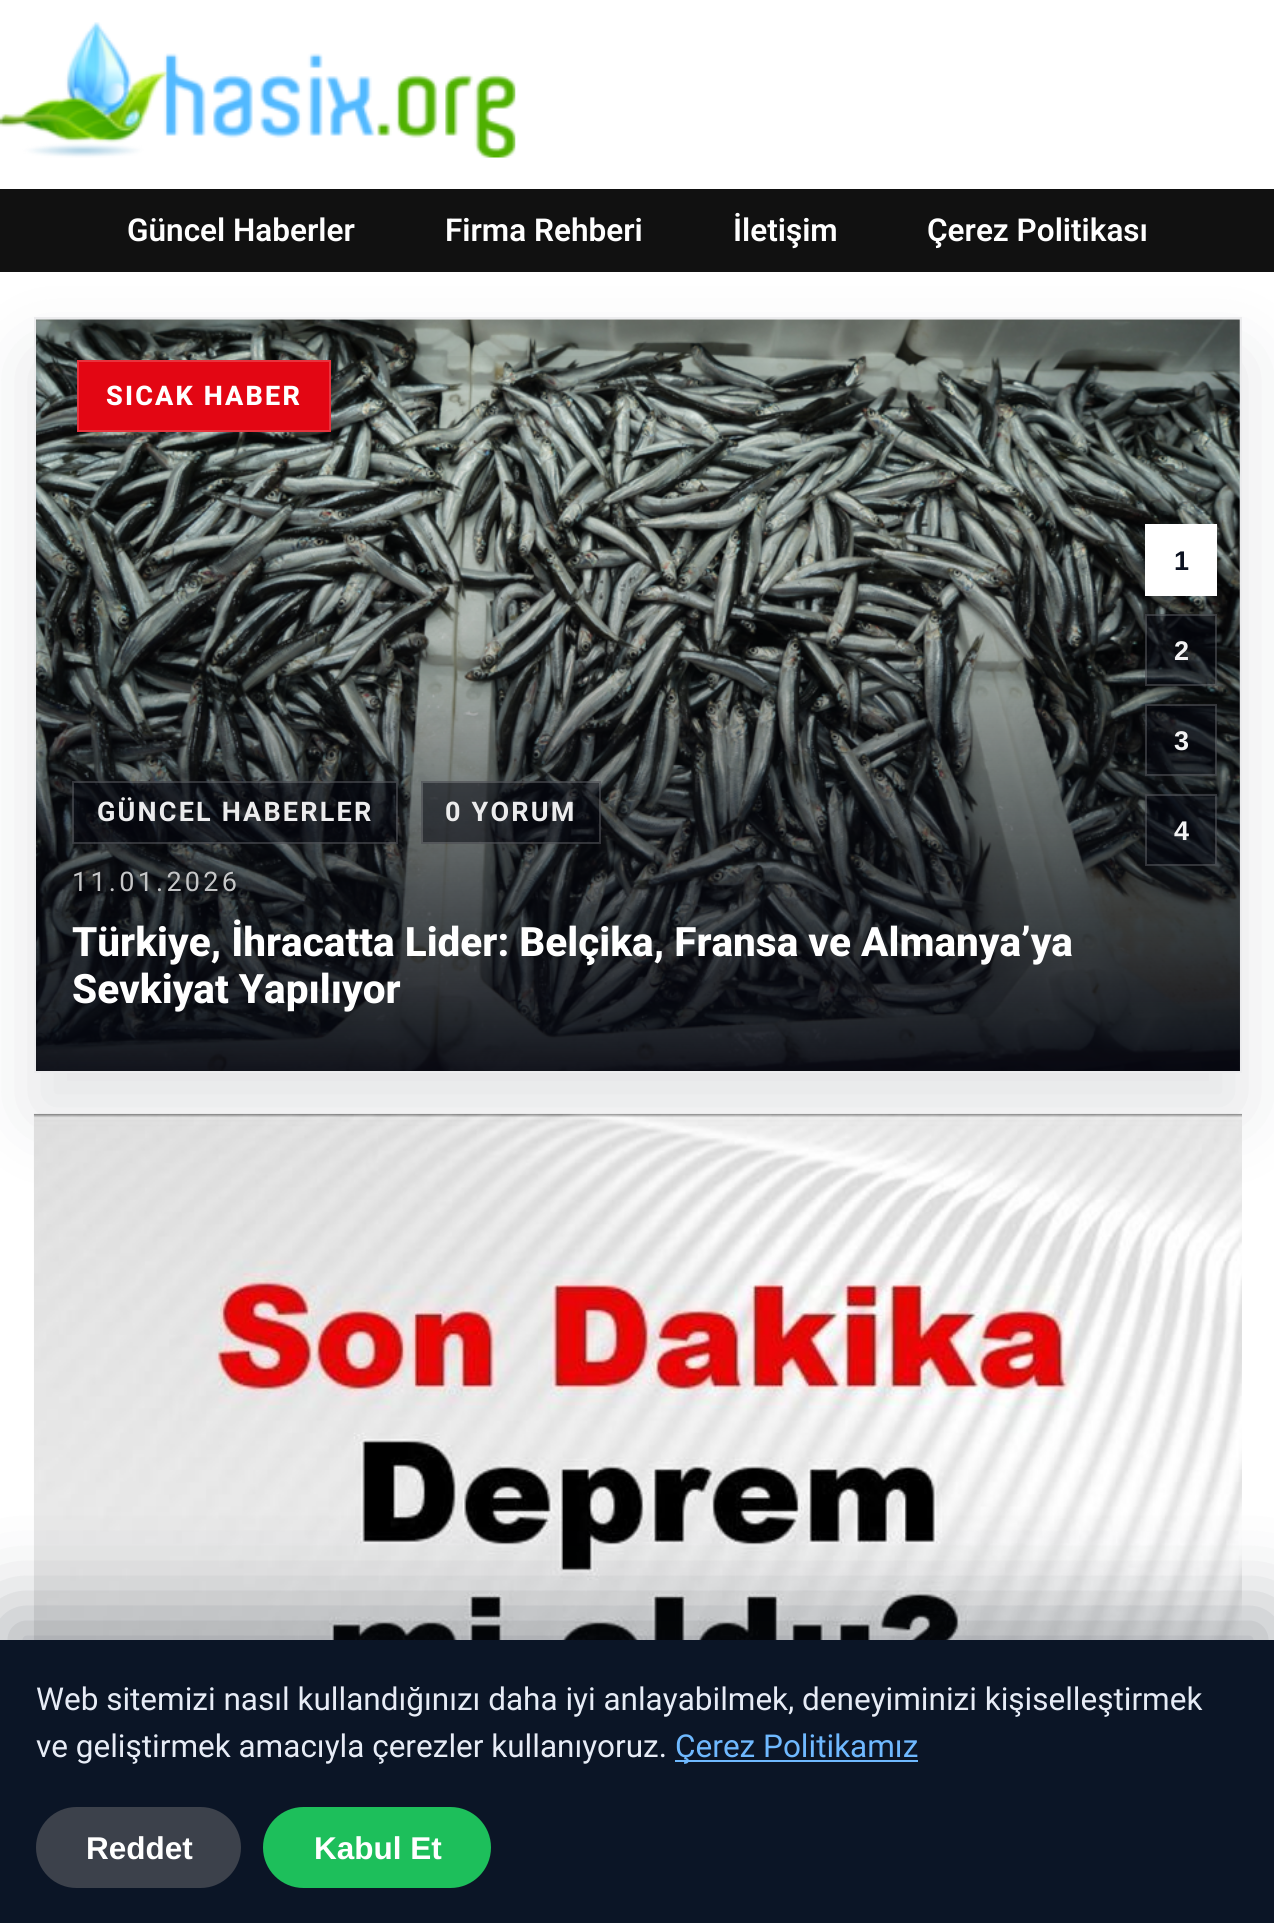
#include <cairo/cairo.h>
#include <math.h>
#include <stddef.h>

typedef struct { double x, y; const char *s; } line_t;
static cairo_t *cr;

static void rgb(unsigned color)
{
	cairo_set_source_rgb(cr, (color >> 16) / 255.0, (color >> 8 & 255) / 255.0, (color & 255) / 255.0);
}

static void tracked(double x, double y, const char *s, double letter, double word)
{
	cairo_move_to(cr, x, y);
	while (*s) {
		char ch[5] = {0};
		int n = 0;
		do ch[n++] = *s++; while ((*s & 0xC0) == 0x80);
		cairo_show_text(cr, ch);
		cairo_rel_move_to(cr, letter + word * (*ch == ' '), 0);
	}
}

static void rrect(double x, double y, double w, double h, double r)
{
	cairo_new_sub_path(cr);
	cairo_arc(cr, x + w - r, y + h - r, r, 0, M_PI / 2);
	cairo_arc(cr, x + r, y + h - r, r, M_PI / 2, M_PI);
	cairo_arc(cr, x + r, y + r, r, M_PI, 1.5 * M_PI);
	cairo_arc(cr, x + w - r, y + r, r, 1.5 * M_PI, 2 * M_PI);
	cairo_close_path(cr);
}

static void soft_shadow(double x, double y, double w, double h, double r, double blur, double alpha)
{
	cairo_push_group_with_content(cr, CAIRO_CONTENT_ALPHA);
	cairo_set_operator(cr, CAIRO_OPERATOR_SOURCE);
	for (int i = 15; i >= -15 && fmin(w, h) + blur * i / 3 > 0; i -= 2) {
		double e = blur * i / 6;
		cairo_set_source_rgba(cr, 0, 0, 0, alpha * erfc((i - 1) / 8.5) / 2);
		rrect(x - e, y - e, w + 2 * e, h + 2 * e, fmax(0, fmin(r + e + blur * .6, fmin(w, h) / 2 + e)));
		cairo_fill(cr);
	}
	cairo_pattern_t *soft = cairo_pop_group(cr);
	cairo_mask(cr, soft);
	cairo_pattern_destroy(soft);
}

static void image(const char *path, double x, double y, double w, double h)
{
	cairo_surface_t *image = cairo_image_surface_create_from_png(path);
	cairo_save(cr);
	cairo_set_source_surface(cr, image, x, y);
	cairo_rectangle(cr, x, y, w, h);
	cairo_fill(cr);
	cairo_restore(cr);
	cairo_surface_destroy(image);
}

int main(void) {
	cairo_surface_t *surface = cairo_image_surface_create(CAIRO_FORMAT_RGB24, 1274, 1923);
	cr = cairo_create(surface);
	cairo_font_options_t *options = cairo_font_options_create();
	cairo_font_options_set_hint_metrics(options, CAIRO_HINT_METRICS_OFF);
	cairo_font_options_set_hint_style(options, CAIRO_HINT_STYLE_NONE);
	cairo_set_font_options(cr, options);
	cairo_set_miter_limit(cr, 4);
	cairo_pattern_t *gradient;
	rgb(0xffffff);
	cairo_paint(cr);
	image("img/1.png", 0, 22, 516, 136);
	rgb(0x111111);
	cairo_rectangle(cr, 0, 189, 1274, 83);
	cairo_fill(cr);
	rgb(0x101828);
	soft_shadow(34, 358, 1208, 756, 0, 39.5, 0.12);
	cairo_rectangle(cr, 35, 318, 1206, 754);
	rgb(0xececee);
	cairo_stroke(cr);
	image("img/2.png", 36, 319, 1204, 752);
	gradient = cairo_pattern_create_linear(638, 1071, 638, 320);
	cairo_pattern_add_color_stop_rgba(gradient, 0, 0.02, 0.027, 0.063, 0.92);
	cairo_pattern_add_color_stop_rgba(gradient, 0.55, 0.02, 0.027, 0.063, 0.2);
	cairo_pattern_add_color_stop_rgba(gradient, 1, 0.02, 0.027, 0.063, 0);
	cairo_set_source(cr, gradient);
	cairo_pattern_destroy(gradient);
	cairo_rectangle(cr, 36, 356, 1204, 715);
	cairo_fill(cr);
	rgb(0xe30613);
	cairo_rectangle(cr, 78, 361, 252, 70);
	cairo_fill_preserve(cr);
	rgb(0xe8333d);
	cairo_stroke(cr);
	cairo_set_source_rgba(cr, 0.02, 0.027, 0.063, 0.55);
	cairo_rectangle(cr, 72, 781, 326, 63);
	cairo_fill(cr);
	cairo_rectangle(cr, 73, 782, 324, 61);
	cairo_set_source_rgba(cr, 1, 1, 1, 0.18);
	cairo_stroke(cr);
	cairo_set_source_rgba(cr, 0.02, 0.027, 0.063, 0.55);
	cairo_rectangle(cr, 421, 781, 180, 63);
	cairo_fill(cr);
	cairo_rectangle(cr, 422, 782, 178, 61);
	cairo_set_source_rgba(cr, 1, 1, 1, 0.18);
	cairo_stroke(cr);
	rgb(0xffffff);
	cairo_rectangle(cr, 1145, 524, 72, 72);
	cairo_fill(cr);
	cairo_set_source_rgba(cr, 0.02, 0.027, 0.063, 0.55);
	cairo_rectangle(cr, 1145, 614, 72, 72);
	cairo_fill(cr);
	cairo_rectangle(cr, 1146, 615, 70, 70);
	cairo_set_source_rgba(cr, 1, 1, 1, 0.18);
	cairo_stroke(cr);
	cairo_set_source_rgba(cr, 0.02, 0.027, 0.063, 0.55);
	cairo_rectangle(cr, 1145, 704, 72, 72);
	cairo_fill(cr);
	cairo_rectangle(cr, 1146, 705, 70, 70);
	cairo_set_source_rgba(cr, 1, 1, 1, 0.18);
	cairo_stroke(cr);
	cairo_set_source_rgba(cr, 0.02, 0.027, 0.063, 0.55);
	cairo_rectangle(cr, 1145, 794, 72, 72);
	cairo_fill(cr);
	cairo_rectangle(cr, 1146, 795, 70, 70);
	cairo_set_source_rgba(cr, 1, 1, 1, 0.18);
	cairo_stroke(cr);
	image("img/3.png", 33, 1113, 1209, 527);
	rgb(0x0c1522);
	soft_shadow(0, 1613, 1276, 284, 0, 45, 0.35);
	rgb(0x0b1526);
	cairo_rectangle(cr, 0, 1640, 1274, 283);
	cairo_fill(cr);
	rgb(0x6fb9ff);
	cairo_rectangle(cr, 675, 1760, 243, 2);
	cairo_fill(cr);
	rgb(0x3c414b);
	rrect(36, 1807, 205, 81, 40.5);
	cairo_fill(cr);
	rgb(0x1dbf5b);
	rrect(263, 1807, 228, 81, 40.5);
	cairo_fill(cr);
	cairo_select_font_face(cr, "Roboto SemiBold", CAIRO_FONT_SLANT_NORMAL, CAIRO_FONT_WEIGHT_NORMAL);
	cairo_set_font_size(cr, 31.5);
	rgb(0xffffff);
	{
		static const line_t items[] = {
			{127, 241, "Güncel Haberler"},
			{445, 241, "Firma Rehberi"},
			{733, 241, "İletişim"},
			{927, 241, "Çerez Politikası"},
		};
		for (size_t i = 0; i < sizeof items / sizeof *items; i++) {
			cairo_move_to(cr, items[i].x, items[i].y);
			cairo_show_text(cr, items[i].s);
		}
	}
	cairo_select_font_face(cr, "Roboto ExtraBold", CAIRO_FONT_SLANT_NORMAL, CAIRO_FONT_WEIGHT_NORMAL);
	cairo_set_font_size(cr, 27);
	tracked(106, 405, "SICAK HABER", 2.2, 0);
	cairo_select_font_face(cr, "Roboto", CAIRO_FONT_SLANT_NORMAL, CAIRO_FONT_WEIGHT_BOLD);
	rgb(0xececed);
	tracked(97, 821, "GÜNCEL HABERLER", 2.2, 0);
	tracked(445, 821, "0 YORUM", 2.2, 0);
	cairo_select_font_face(cr, "Roboto", CAIRO_FONT_SLANT_NORMAL, CAIRO_FONT_WEIGHT_NORMAL);
	rgb(0xc5c6c7);
	tracked(72, 891, "11.01.2026", 3.25, 0);
	cairo_select_font_face(cr, "Roboto ExtraBold", CAIRO_FONT_SLANT_NORMAL, CAIRO_FONT_WEIGHT_NORMAL);
	cairo_set_font_size(cr, 40.5);
	rgb(0xffffff);
	cairo_move_to(cr, 72, 956);
	cairo_show_text(cr, "Türkiye, İhracatta Lider: Belçika, Fransa ve Almanya’ya");
	cairo_move_to(cr, 72, 1003);
	cairo_show_text(cr, "Sevkiyat Yapılıyor");
	cairo_select_font_face(cr, "Liberation Sans", CAIRO_FONT_SLANT_NORMAL, CAIRO_FONT_WEIGHT_BOLD);
	cairo_set_font_size(cr, 27);
	rgb(0x0b1120);
	cairo_move_to(cr, 1174, 570);
	cairo_show_text(cr, "1");
	rgb(0xf3f3f4);
	{
		static const line_t items[] = {
			{1174, 660, "2"},
			{1174, 750, "3"},
			{1174, 840, "4"},
		};
		for (size_t i = 0; i < sizeof items / sizeof *items; i++) {
			cairo_move_to(cr, items[i].x, items[i].y);
			cairo_show_text(cr, items[i].s);
		}
	}
	cairo_select_font_face(cr, "Roboto", CAIRO_FONT_SLANT_NORMAL, CAIRO_FONT_WEIGHT_NORMAL);
	cairo_set_font_size(cr, 31.5);
	rgb(0xe7ecf6);
	cairo_move_to(cr, 36, 1710);
	cairo_show_text(cr, "Web sitemizi nasıl kullandığınızı daha iyi anlayabilmek, deneyiminizi kişiselleştirmek");
	cairo_move_to(cr, 36, 1757);
	cairo_show_text(cr, "ve geliştirmek amacıyla çerezler kullanıyoruz.");
	rgb(0x6fb9ff);
	cairo_move_to(cr, 675, 1757);
	cairo_show_text(cr, "Çerez Politikamız");
	cairo_select_font_face(cr, "Liberation Sans", CAIRO_FONT_SLANT_NORMAL, CAIRO_FONT_WEIGHT_BOLD);
	rgb(0xffffff);
	cairo_move_to(cr, 86, 1859);
	cairo_show_text(cr, "Reddet");
	cairo_move_to(cr, 314, 1859);
	cairo_show_text(cr, "Kabul Et");
	cairo_surface_write_to_png(surface, "page.png");
	cairo_font_options_destroy(options);
	cairo_destroy(cr);
	cairo_surface_destroy(surface);
	return 0;
}
